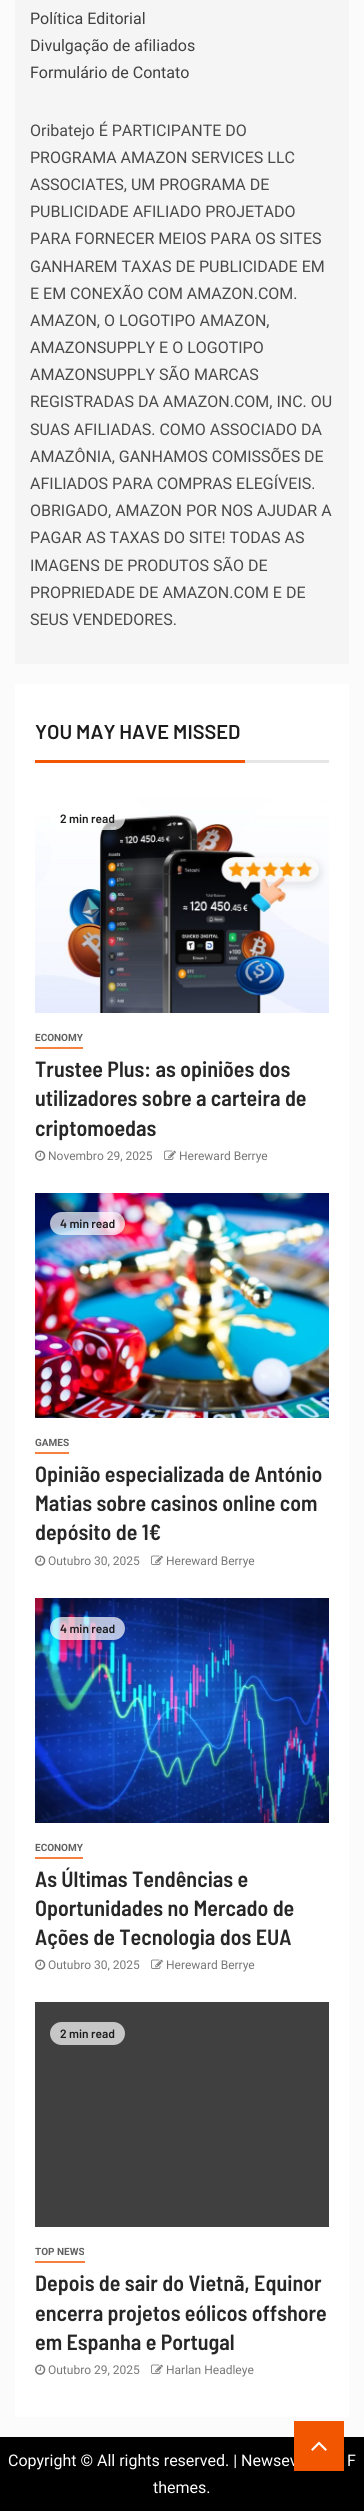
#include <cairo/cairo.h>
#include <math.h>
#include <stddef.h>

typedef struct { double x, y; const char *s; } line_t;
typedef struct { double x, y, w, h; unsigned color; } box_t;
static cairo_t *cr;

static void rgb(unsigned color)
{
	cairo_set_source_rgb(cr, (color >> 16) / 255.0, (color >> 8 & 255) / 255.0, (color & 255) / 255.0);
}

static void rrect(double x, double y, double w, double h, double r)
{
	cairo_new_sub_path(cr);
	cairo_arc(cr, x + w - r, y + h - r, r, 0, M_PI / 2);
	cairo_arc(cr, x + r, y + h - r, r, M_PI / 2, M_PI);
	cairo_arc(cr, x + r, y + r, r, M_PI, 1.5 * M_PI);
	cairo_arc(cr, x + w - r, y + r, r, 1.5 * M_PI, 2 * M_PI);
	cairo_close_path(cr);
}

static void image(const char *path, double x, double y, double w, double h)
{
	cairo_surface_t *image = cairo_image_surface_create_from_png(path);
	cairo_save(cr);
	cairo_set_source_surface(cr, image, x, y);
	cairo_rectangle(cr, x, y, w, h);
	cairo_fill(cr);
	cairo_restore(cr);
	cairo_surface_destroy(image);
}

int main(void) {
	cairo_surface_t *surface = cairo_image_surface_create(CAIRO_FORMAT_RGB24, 364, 2511);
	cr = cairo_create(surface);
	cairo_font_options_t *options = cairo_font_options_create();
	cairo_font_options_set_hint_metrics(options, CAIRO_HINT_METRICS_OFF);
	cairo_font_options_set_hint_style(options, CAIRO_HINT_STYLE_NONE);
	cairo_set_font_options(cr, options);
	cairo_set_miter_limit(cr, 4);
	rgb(0xfbfbfb);
	cairo_paint(cr);
	{
		static const box_t items[] = {
			{15, 0, 334, 664, 0xf5f5f5},
			{15, 684, 334, 1733, 0xffffff},
			{35, 760, 210, 3, 0xf25600},
			{245, 760, 84, 3, 0xe6e6e6},
		};
		for (size_t i = 0; i < sizeof items / sizeof *items; i++) {
			rgb(items[i].color);
			cairo_rectangle(cr, items[i].x, items[i].y, items[i].w, items[i].h);
			cairo_fill(cr);
		}
	}
	image("img/1.png", 35, 788, 294, 225);
	cairo_set_source_rgba(cr, 1, 1, 1, 0.7);
	rrect(50, 807, 75, 23, 11.5);
	cairo_fill(cr);
	rgb(0xf58040);
	cairo_rectangle(cr, 35, 1047, 48, 2);
	cairo_fill(cr);
	image("img/2.png", 35, 1150, 11, 11);
	image("img/3.png", 164, 1150, 12, 10);
	image("img/4.png", 35, 1193, 294, 225);
	cairo_set_source_rgba(cr, 1, 1, 1, 0.7);
	rrect(50, 1212, 75, 23, 11.5);
	cairo_fill(cr);
	rgb(0xf58040);
	cairo_rectangle(cr, 35, 1452, 34, 2);
	cairo_fill(cr);
	image("img/2.png", 35, 1555, 11, 11);
	image("img/3.png", 151, 1555, 12, 10);
	image("img/5.png", 35, 1598, 294, 225);
	cairo_set_source_rgba(cr, 1, 1, 1, 0.7);
	rrect(50, 1617, 75, 23, 11.5);
	cairo_fill(cr);
	rgb(0xf58040);
	cairo_rectangle(cr, 35, 1857, 48, 2);
	cairo_fill(cr);
	image("img/2.png", 35, 1959, 11, 11);
	image("img/3.png", 151, 1959, 12, 10);
	rgb(0x404040);
	cairo_rectangle(cr, 35, 2002, 294, 225);
	cairo_fill(cr);
	rgb(0xc6c6c6);
	rrect(50, 2022, 75, 23, 11.5);
	cairo_fill(cr);
	rgb(0xf58040);
	cairo_rectangle(cr, 35, 2261, 50, 2);
	cairo_fill(cr);
	image("img/2.png", 35, 2364, 11, 11);
	image("img/3.png", 151, 2364, 12, 10);
	rgb(0x000000);
	cairo_rectangle(cr, 0, 2437, 364, 74);
	cairo_fill(cr);
	cairo_select_font_face(cr, "Roboto", CAIRO_FONT_SLANT_NORMAL, CAIRO_FONT_WEIGHT_NORMAL);
	cairo_set_font_size(cr, 16);
	rgb(0x404040);
	{
		static const line_t items[] = {
			{30, 24, "Política Editorial"},
			{30, 51, "Divulgação de afiliados"},
			{30, 78, "Formulário de Contato"},
		};
		for (size_t i = 0; i < sizeof items / sizeof *items; i++) {
			cairo_move_to(cr, items[i].x, items[i].y);
			cairo_show_text(cr, items[i].s);
		}
	}
	rgb(0x4a4a4a);
	{
		static const line_t items[] = {
			{30, 136, "Oribatejo É PARTICIPANTE DO"},
			{30, 163, "PROGRAMA AMAZON SERVICES LLC"},
			{30, 190, "ASSOCIATES, UM PROGRAMA DE"},
			{30, 217, "PUBLICIDADE AFILIADO PROJETADO"},
			{30, 244, "PARA FORNECER MEIOS PARA OS SITES"},
			{30, 272, "GANHAREM TAXAS DE PUBLICIDADE EM"},
			{30, 299, "E EM CONEXÃO COM AMAZON.COM."},
			{30, 326, "AMAZON, O LOGOTIPO AMAZON,"},
			{30, 353, "AMAZONSUPPLY E O LOGOTIPO"},
			{30, 380, "AMAZONSUPPLY SÃO MARCAS"},
			{30, 407, "REGISTRADAS DA AMAZON.COM, INC. OU"},
			{30, 435, "SUAS AFILIADAS. COMO ASSOCIADO DA"},
			{30, 462, "AMAZÔNIA, GANHAMOS COMISSÕES DE"},
			{30, 489, "AFILIADOS PARA COMPRAS ELEGÍVEIS."},
			{30, 516, "OBRIGADO, AMAZON POR NOS AJUDAR A"},
			{30, 543, "PAGAR AS TAXAS DO SITE! TODAS AS"},
			{30, 571, "IMAGENS DE PRODUTOS SÃO DE"},
			{30, 598, "PROPRIEDADE DE AMAZON.COM E DE"},
			{30, 625, "SEUS VENDEDORES."},
		};
		for (size_t i = 0; i < sizeof items / sizeof *items; i++) {
			cairo_move_to(cr, items[i].x, items[i].y);
			cairo_show_text(cr, items[i].s);
		}
	}
	cairo_select_font_face(cr, "Barlow SemiBold", CAIRO_FONT_SLANT_NORMAL, CAIRO_FONT_WEIGHT_NORMAL);
	cairo_set_font_size(cr, 20);
	rgb(0x1c1c1c);
	cairo_move_to(cr, 35, 739);
	cairo_show_text(cr, "YOU MAY HAVE MISSED");
	cairo_set_font_size(cr, 12);
	cairo_move_to(cr, 60, 823);
	cairo_show_text(cr, "2 min read");
	cairo_select_font_face(cr, "Roboto", CAIRO_FONT_SLANT_NORMAL, CAIRO_FONT_WEIGHT_BOLD);
	cairo_set_font_size(cr, 10);
	rgb(0x606060);
	cairo_move_to(cr, 35, 1041);
	cairo_show_text(cr, "ECONOMY");
	cairo_select_font_face(cr, "Barlow Semi Condensed SemiBold", CAIRO_FONT_SLANT_NORMAL, CAIRO_FONT_WEIGHT_NORMAL);
	cairo_set_font_size(cr, 22);
	rgb(0x272727);
	{
		static const line_t items[] = {
			{35, 1077, "Trustee Plus: as opiniões dos"},
			{35, 1106, "utilizadores sobre a carteira de"},
			{35, 1136, "criptomoedas"},
		};
		for (size_t i = 0; i < sizeof items / sizeof *items; i++) {
			cairo_move_to(cr, items[i].x, items[i].y);
			cairo_show_text(cr, items[i].s);
		}
	}
	cairo_select_font_face(cr, "Roboto", CAIRO_FONT_SLANT_NORMAL, CAIRO_FONT_WEIGHT_NORMAL);
	cairo_set_font_size(cr, 12);
	rgb(0x777777);
	cairo_move_to(cr, 48, 1160);
	cairo_show_text(cr, "Novembro 29, 2025");
	cairo_move_to(cr, 179, 1160);
	cairo_show_text(cr, "Hereward Berrye");
	cairo_select_font_face(cr, "Barlow SemiBold", CAIRO_FONT_SLANT_NORMAL, CAIRO_FONT_WEIGHT_NORMAL);
	rgb(0x1c1c1c);
	cairo_move_to(cr, 60, 1228);
	cairo_show_text(cr, "4 min read");
	cairo_select_font_face(cr, "Roboto", CAIRO_FONT_SLANT_NORMAL, CAIRO_FONT_WEIGHT_BOLD);
	cairo_set_font_size(cr, 10);
	rgb(0x606060);
	cairo_move_to(cr, 35, 1446);
	cairo_show_text(cr, "GAMES");
	cairo_select_font_face(cr, "Barlow Semi Condensed SemiBold", CAIRO_FONT_SLANT_NORMAL, CAIRO_FONT_WEIGHT_NORMAL);
	cairo_set_font_size(cr, 22);
	rgb(0x272727);
	{
		static const line_t items[] = {
			{35, 1482, "Opinião especializada de António"},
			{35, 1511, "Matias sobre casinos online com"},
			{35, 1540, "depósito de 1€"},
		};
		for (size_t i = 0; i < sizeof items / sizeof *items; i++) {
			cairo_move_to(cr, items[i].x, items[i].y);
			cairo_show_text(cr, items[i].s);
		}
	}
	cairo_select_font_face(cr, "Roboto", CAIRO_FONT_SLANT_NORMAL, CAIRO_FONT_WEIGHT_NORMAL);
	cairo_set_font_size(cr, 12);
	rgb(0x777777);
	cairo_move_to(cr, 48, 1565);
	cairo_show_text(cr, "Outubro 30, 2025");
	cairo_move_to(cr, 166, 1565);
	cairo_show_text(cr, "Hereward Berrye");
	cairo_select_font_face(cr, "Barlow SemiBold", CAIRO_FONT_SLANT_NORMAL, CAIRO_FONT_WEIGHT_NORMAL);
	rgb(0x1c1c1c);
	cairo_move_to(cr, 60, 1633);
	cairo_show_text(cr, "4 min read");
	cairo_select_font_face(cr, "Roboto", CAIRO_FONT_SLANT_NORMAL, CAIRO_FONT_WEIGHT_BOLD);
	cairo_set_font_size(cr, 10);
	rgb(0x606060);
	cairo_move_to(cr, 35, 1851);
	cairo_show_text(cr, "ECONOMY");
	cairo_select_font_face(cr, "Barlow Semi Condensed SemiBold", CAIRO_FONT_SLANT_NORMAL, CAIRO_FONT_WEIGHT_NORMAL);
	cairo_set_font_size(cr, 22);
	rgb(0x272727);
	{
		static const line_t items[] = {
			{35, 1887, "As Últimas Tendências e"},
			{35, 1916, "Oportunidades no Mercado de"},
			{35, 1945, "Ações de Tecnologia dos EUA"},
		};
		for (size_t i = 0; i < sizeof items / sizeof *items; i++) {
			cairo_move_to(cr, items[i].x, items[i].y);
			cairo_show_text(cr, items[i].s);
		}
	}
	cairo_select_font_face(cr, "Roboto", CAIRO_FONT_SLANT_NORMAL, CAIRO_FONT_WEIGHT_NORMAL);
	cairo_set_font_size(cr, 12);
	rgb(0x777777);
	cairo_move_to(cr, 48, 1969);
	cairo_show_text(cr, "Outubro 30, 2025");
	cairo_move_to(cr, 166, 1969);
	cairo_show_text(cr, "Hereward Berrye");
	cairo_select_font_face(cr, "Barlow SemiBold", CAIRO_FONT_SLANT_NORMAL, CAIRO_FONT_WEIGHT_NORMAL);
	rgb(0x1c1c1c);
	cairo_move_to(cr, 60, 2038);
	cairo_show_text(cr, "2 min read");
	cairo_select_font_face(cr, "Roboto", CAIRO_FONT_SLANT_NORMAL, CAIRO_FONT_WEIGHT_BOLD);
	cairo_set_font_size(cr, 10);
	rgb(0x606060);
	cairo_move_to(cr, 35, 2255);
	cairo_show_text(cr, "TOP NEWS");
	cairo_select_font_face(cr, "Barlow Semi Condensed SemiBold", CAIRO_FONT_SLANT_NORMAL, CAIRO_FONT_WEIGHT_NORMAL);
	cairo_set_font_size(cr, 22);
	rgb(0x272727);
	{
		static const line_t items[] = {
			{35, 2291, "Depois de sair do Vietnã, Equinor"},
			{35, 2321, "encerra projetos eólicos offshore"},
			{35, 2350, "em Espanha e Portugal"},
		};
		for (size_t i = 0; i < sizeof items / sizeof *items; i++) {
			cairo_move_to(cr, items[i].x, items[i].y);
			cairo_show_text(cr, items[i].s);
		}
	}
	cairo_select_font_face(cr, "Roboto", CAIRO_FONT_SLANT_NORMAL, CAIRO_FONT_WEIGHT_NORMAL);
	cairo_set_font_size(cr, 12);
	rgb(0x777777);
	cairo_move_to(cr, 48, 2374);
	cairo_show_text(cr, "Outubro 29, 2025");
	cairo_move_to(cr, 166, 2374);
	cairo_show_text(cr, "Harlan Headleye");
	cairo_set_font_size(cr, 16);
	rgb(0xffffff);
	{
		static const line_t items[] = {
			{8, 2466, "Copyright © All rights reserved. | Newsev"},
			{347, 2466, "F"},
			{153, 2493, "themes."},
		};
		for (size_t i = 0; i < sizeof items / sizeof *items; i++) {
			cairo_move_to(cr, items[i].x, items[i].y);
			cairo_show_text(cr, items[i].s);
		}
	}
	rgb(0xf25600);
	cairo_rectangle(cr, 294, 2421, 50, 50);
	cairo_fill(cr);
	image("img/6.png", 311, 2441, 16, 10);
	cairo_surface_write_to_png(surface, "page.png");
	cairo_font_options_destroy(options);
	cairo_destroy(cr);
	cairo_surface_destroy(surface);
	return 0;
}
